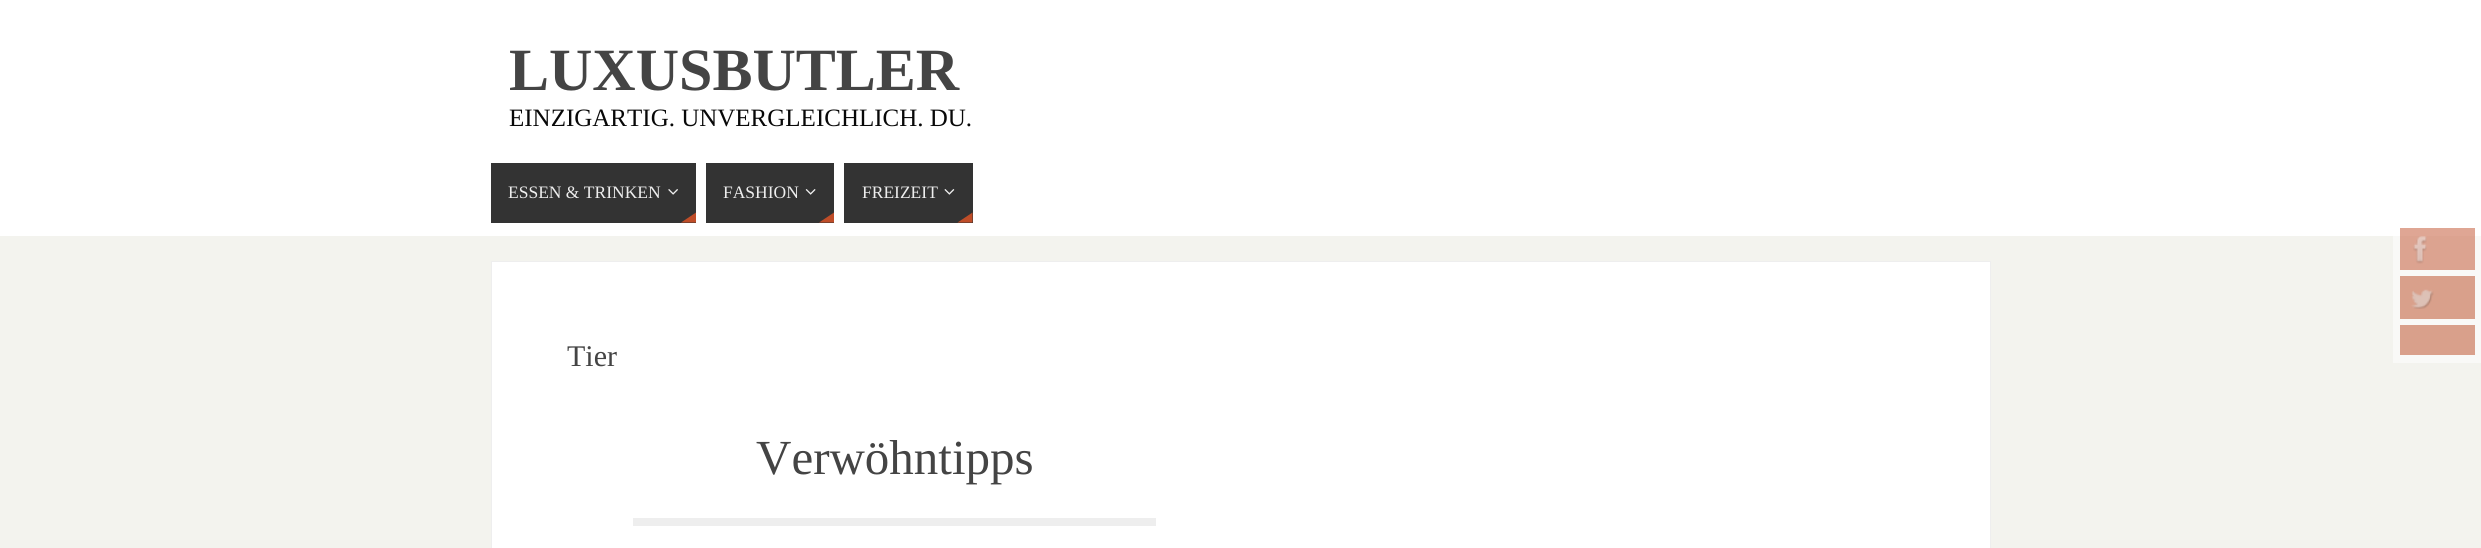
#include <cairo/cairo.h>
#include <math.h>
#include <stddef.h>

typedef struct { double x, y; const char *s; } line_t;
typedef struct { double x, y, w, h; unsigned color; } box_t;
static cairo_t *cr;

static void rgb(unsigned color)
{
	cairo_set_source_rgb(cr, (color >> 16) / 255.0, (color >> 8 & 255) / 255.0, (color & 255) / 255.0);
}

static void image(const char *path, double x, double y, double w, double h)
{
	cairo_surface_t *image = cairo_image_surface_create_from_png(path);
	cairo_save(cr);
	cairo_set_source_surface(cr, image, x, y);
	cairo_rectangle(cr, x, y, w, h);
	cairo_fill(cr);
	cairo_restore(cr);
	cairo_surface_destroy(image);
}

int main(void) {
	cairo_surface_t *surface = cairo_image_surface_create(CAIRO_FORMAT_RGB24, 2481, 548);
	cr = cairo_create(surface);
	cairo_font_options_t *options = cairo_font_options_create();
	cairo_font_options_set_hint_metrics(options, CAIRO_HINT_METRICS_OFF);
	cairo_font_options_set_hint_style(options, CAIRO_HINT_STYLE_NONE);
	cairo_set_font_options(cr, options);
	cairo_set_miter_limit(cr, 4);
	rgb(0xf3f3ee);
	cairo_paint(cr);
	{
		static const box_t items[] = {
			{2393, 236, 88, 127, 0xf9f9f7},
			{2400, 236, 75, 34, 0xdca390},
			{0, 0, 2481, 236, 0xffffff},
			{2400, 228, 75, 8, 0xdfa694},
			{491, 163, 205, 60, 0x333333},
		};
		for (size_t i = 0; i < sizeof items / sizeof *items; i++) {
			rgb(items[i].color);
			cairo_rectangle(cr, items[i].x, items[i].y, items[i].w, items[i].h);
			cairo_fill(cr);
		}
	}
	image("img/1.png", 668, 189, 10, 6);
	rgb(0xbf4d28);
	cairo_new_path(cr);
	cairo_move_to(cr, 696, 222.5);
	cairo_line_to(cr, 681, 222.5);
	cairo_line_to(cr, 696, 212.5);
	cairo_close_path(cr);
	cairo_fill(cr);
	rgb(0x333333);
	cairo_rectangle(cr, 706, 163, 128, 60);
	cairo_fill(cr);
	image("img/2.png", 805, 189, 11, 6);
	rgb(0xbf4d28);
	cairo_new_path(cr);
	cairo_move_to(cr, 834, 222.5);
	cairo_line_to(cr, 819, 222.5);
	cairo_line_to(cr, 834, 212.5);
	cairo_close_path(cr);
	cairo_fill(cr);
	rgb(0x333333);
	cairo_rectangle(cr, 844, 163, 129, 60);
	cairo_fill(cr);
	image("img/3.png", 944, 189, 11, 6);
	rgb(0xbf4d28);
	cairo_new_path(cr);
	cairo_move_to(cr, 972.5, 222.5);
	cairo_line_to(cr, 957.5, 222.5);
	cairo_line_to(cr, 972.5, 212.5);
	cairo_close_path(cr);
	cairo_fill(cr);
	image("img/4.png", 2413, 236, 14, 28);
	rgb(0xd9a08b);
	cairo_rectangle(cr, 2400, 276, 75, 43);
	cairo_fill(cr);
	image("img/5.png", 2411, 289, 23, 20);
	cairo_rectangle(cr, 2400, 325, 75, 30);
	cairo_fill(cr);
	rgb(0xffffff);
	cairo_rectangle(cr, 491.5, 261.5, 1499, 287);
	cairo_fill_preserve(cr);
	rgb(0xeeeeee);
	cairo_set_line_width(cr, 1);
	cairo_stroke(cr);
	cairo_rectangle(cr, 633, 518, 523, 8);
	cairo_fill(cr);
	cairo_select_font_face(cr, "Liberation Serif", CAIRO_FONT_SLANT_NORMAL, CAIRO_FONT_WEIGHT_BOLD);
	cairo_set_font_size(cr, 60);
	rgb(0x444444);
	cairo_move_to(cr, 509, 90);
	cairo_show_text(cr, "LUXUSBUTLER");
	cairo_select_font_face(cr, "Liberation Serif", CAIRO_FONT_SLANT_NORMAL, CAIRO_FONT_WEIGHT_NORMAL);
	cairo_set_font_size(cr, 25);
	rgb(0x080808);
	cairo_move_to(cr, 509, 126);
	cairo_show_text(cr, "EINZIGARTIG. UNVERGLEICHLICH. DU.");
	cairo_set_font_size(cr, 17.5);
	rgb(0xeeeeee);
	{
		static const line_t items[] = {
			{508, 198, "ESSEN & TRINKEN"},
			{723, 198, "FASHION"},
			{862, 198, "FREIZEIT"},
		};
		for (size_t i = 0; i < sizeof items / sizeof *items; i++) {
			cairo_move_to(cr, items[i].x, items[i].y);
			cairo_show_text(cr, items[i].s);
		}
	}
	cairo_set_font_size(cr, 30);
	rgb(0x444444);
	cairo_move_to(cr, 567, 366);
	cairo_show_text(cr, "Tier");
	cairo_set_font_size(cr, 49);
	cairo_move_to(cr, 756, 474);
	cairo_show_text(cr, "Verwöhntipps");
	cairo_surface_write_to_png(surface, "page.png");
	cairo_font_options_destroy(options);
	cairo_destroy(cr);
	cairo_surface_destroy(surface);
	return 0;
}
